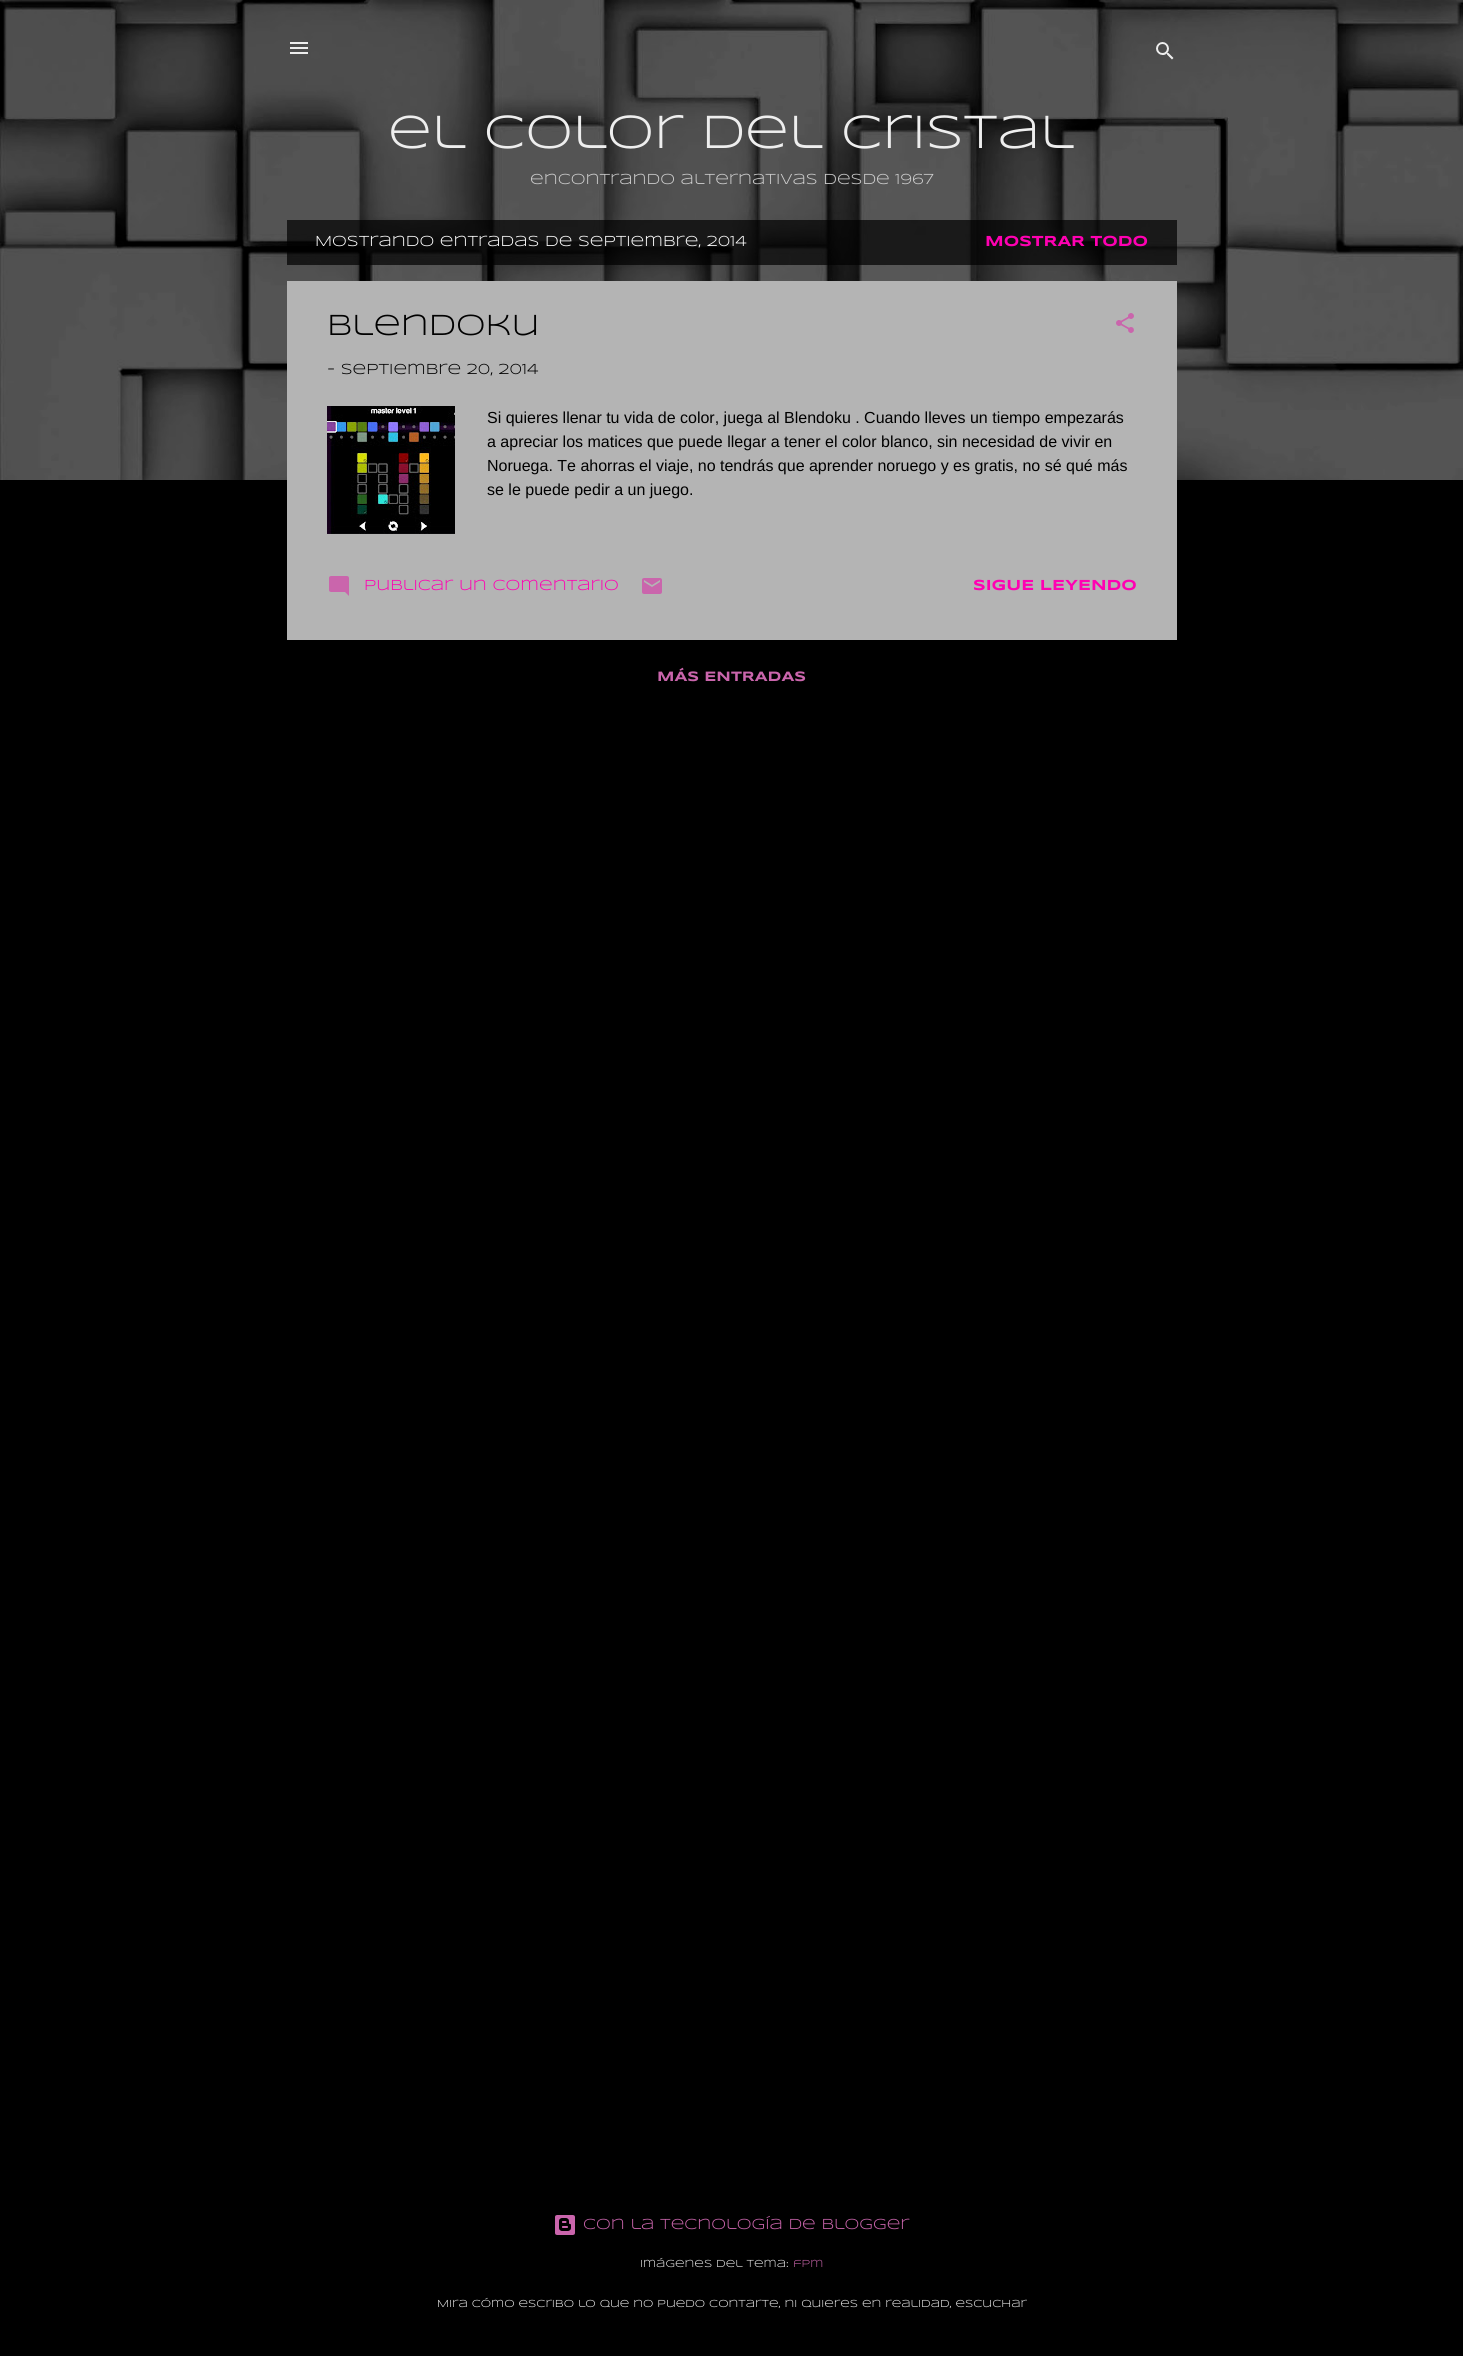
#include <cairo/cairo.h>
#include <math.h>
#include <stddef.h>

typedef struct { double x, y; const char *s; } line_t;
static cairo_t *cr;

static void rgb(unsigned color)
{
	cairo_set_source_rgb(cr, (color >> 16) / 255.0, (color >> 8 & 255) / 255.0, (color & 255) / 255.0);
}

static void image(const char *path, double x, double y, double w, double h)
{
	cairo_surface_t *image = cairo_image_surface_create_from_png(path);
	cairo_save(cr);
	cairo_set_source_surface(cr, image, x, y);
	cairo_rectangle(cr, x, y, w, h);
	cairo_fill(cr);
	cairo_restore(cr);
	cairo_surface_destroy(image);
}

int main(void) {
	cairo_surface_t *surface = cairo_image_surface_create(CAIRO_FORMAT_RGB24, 1463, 2356);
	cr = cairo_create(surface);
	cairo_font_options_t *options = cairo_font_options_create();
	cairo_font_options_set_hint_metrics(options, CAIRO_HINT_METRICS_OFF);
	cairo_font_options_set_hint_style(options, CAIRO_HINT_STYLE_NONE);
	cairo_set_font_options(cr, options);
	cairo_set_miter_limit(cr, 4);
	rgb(0x000000);
	cairo_paint(cr);
	image("img/1.png", 0, 0, 1463, 480);
	image("img/2.png", 290, 42, 18, 12);
	image("img/3.png", 1156, 42, 18, 18);
	cairo_set_source_rgba(cr, 0, 0, 0, 0.7);
	cairo_rectangle(cr, 287, 220, 890, 45);
	cairo_fill(cr);
	rgb(0xb4b4b4);
	cairo_rectangle(cr, 287, 281, 890, 359);
	cairo_fill(cr);
	image("img/4.png", 1116, 313, 18, 20);
	image("img/5.png", 327, 406, 128, 128);
	image("img/6.png", 329, 576, 20, 20);
	image("img/7.png", 642, 578, 20, 16);
	image("img/8.png", 555, 2215, 20, 20);
	cairo_select_font_face(cr, "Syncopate", CAIRO_FONT_SLANT_NORMAL, CAIRO_FONT_WEIGHT_NORMAL);
	cairo_set_font_size(cr, 48);
	rgb(0xeeeeee);
	cairo_move_to(cr, 388, 148);
	cairo_show_text(cr, "el color del cristal");
	cairo_set_font_size(cr, 15);
	rgb(0xcdcdcd);
	cairo_move_to(cr, 530, 184);
	cairo_show_text(cr, "encontrando alternativas desde 1967");
	rgb(0xffffff);
	cairo_move_to(cr, 315, 246);
	cairo_show_text(cr, "Mostrando entradas de septiembre, 2014");
	cairo_select_font_face(cr, "Syncopate", CAIRO_FONT_SLANT_NORMAL, CAIRO_FONT_WEIGHT_BOLD);
	rgb(0xff00b2);
	cairo_move_to(cr, 985, 246);
	cairo_show_text(cr, "MOSTRAR TODO");
	cairo_select_font_face(cr, "Syncopate", CAIRO_FONT_SLANT_NORMAL, CAIRO_FONT_WEIGHT_NORMAL);
	cairo_set_font_size(cr, 30);
	rgb(0x000000);
	cairo_move_to(cr, 327, 335);
	cairo_show_text(cr, "Blendoku");
	cairo_set_font_size(cr, 15);
	cairo_move_to(cr, 327, 374);
	cairo_show_text(cr, "- septiembre 20, 2014");
	cairo_select_font_face(cr, "Liberation Sans", CAIRO_FONT_SLANT_NORMAL, CAIRO_FONT_WEIGHT_NORMAL);
	cairo_set_font_size(cr, 16);
	{
		static const line_t items[] = {
			{487, 423, "Si quieres llenar tu vida de color, juega al Blendoku . Cuando lleves un tiempo empezarás"},
			{487, 447, "a apreciar los matices que puede llegar a tener el color blanco, sin necesidad de vivir en"},
			{487, 471, "Noruega. Te ahorras el viaje, no tendrás que aprender noruego y es gratis, no sé qué más"},
			{487, 495, "se le puede pedir a un juego."},
		};
		for (size_t i = 0; i < sizeof items / sizeof *items; i++) {
			cairo_move_to(cr, items[i].x, items[i].y);
			cairo_show_text(cr, items[i].s);
		}
	}
	cairo_select_font_face(cr, "Syncopate", CAIRO_FONT_SLANT_NORMAL, CAIRO_FONT_WEIGHT_NORMAL);
	cairo_set_font_size(cr, 15);
	rgb(0xff00b2);
	cairo_move_to(cr, 364, 590);
	cairo_show_text(cr, "Publicar un comentario");
	cairo_select_font_face(cr, "Syncopate", CAIRO_FONT_SLANT_NORMAL, CAIRO_FONT_WEIGHT_BOLD);
	cairo_move_to(cr, 973, 590);
	cairo_show_text(cr, "SIGUE LEYENDO");
	cairo_set_font_size(cr, 14);
	rgb(0xca65ac);
	cairo_move_to(cr, 657, 681);
	cairo_show_text(cr, "MÁS ENTRADAS");
	cairo_select_font_face(cr, "Syncopate", CAIRO_FONT_SLANT_NORMAL, CAIRO_FONT_WEIGHT_NORMAL);
	cairo_set_font_size(cr, 15);
	cairo_move_to(cr, 583, 2229);
	cairo_show_text(cr, "Con la tecnología de Blogger");
	cairo_set_font_size(cr, 10.5);
	rgb(0xeeeeee);
	cairo_move_to(cr, 640, 2267);
	cairo_show_text(cr, "Imágenes del tema:");
	rgb(0xca65ac);
	cairo_move_to(cr, 793, 2267);
	cairo_show_text(cr, "fpm");
	rgb(0xeeeeee);
	cairo_move_to(cr, 437, 2307);
	cairo_show_text(cr, "Mira cómo escribo lo que no puedo contarte, ni quieres en realidad, escuchar");
	cairo_surface_write_to_png(surface, "page.png");
	cairo_font_options_destroy(options);
	cairo_destroy(cr);
	cairo_surface_destroy(surface);
	return 0;
}
